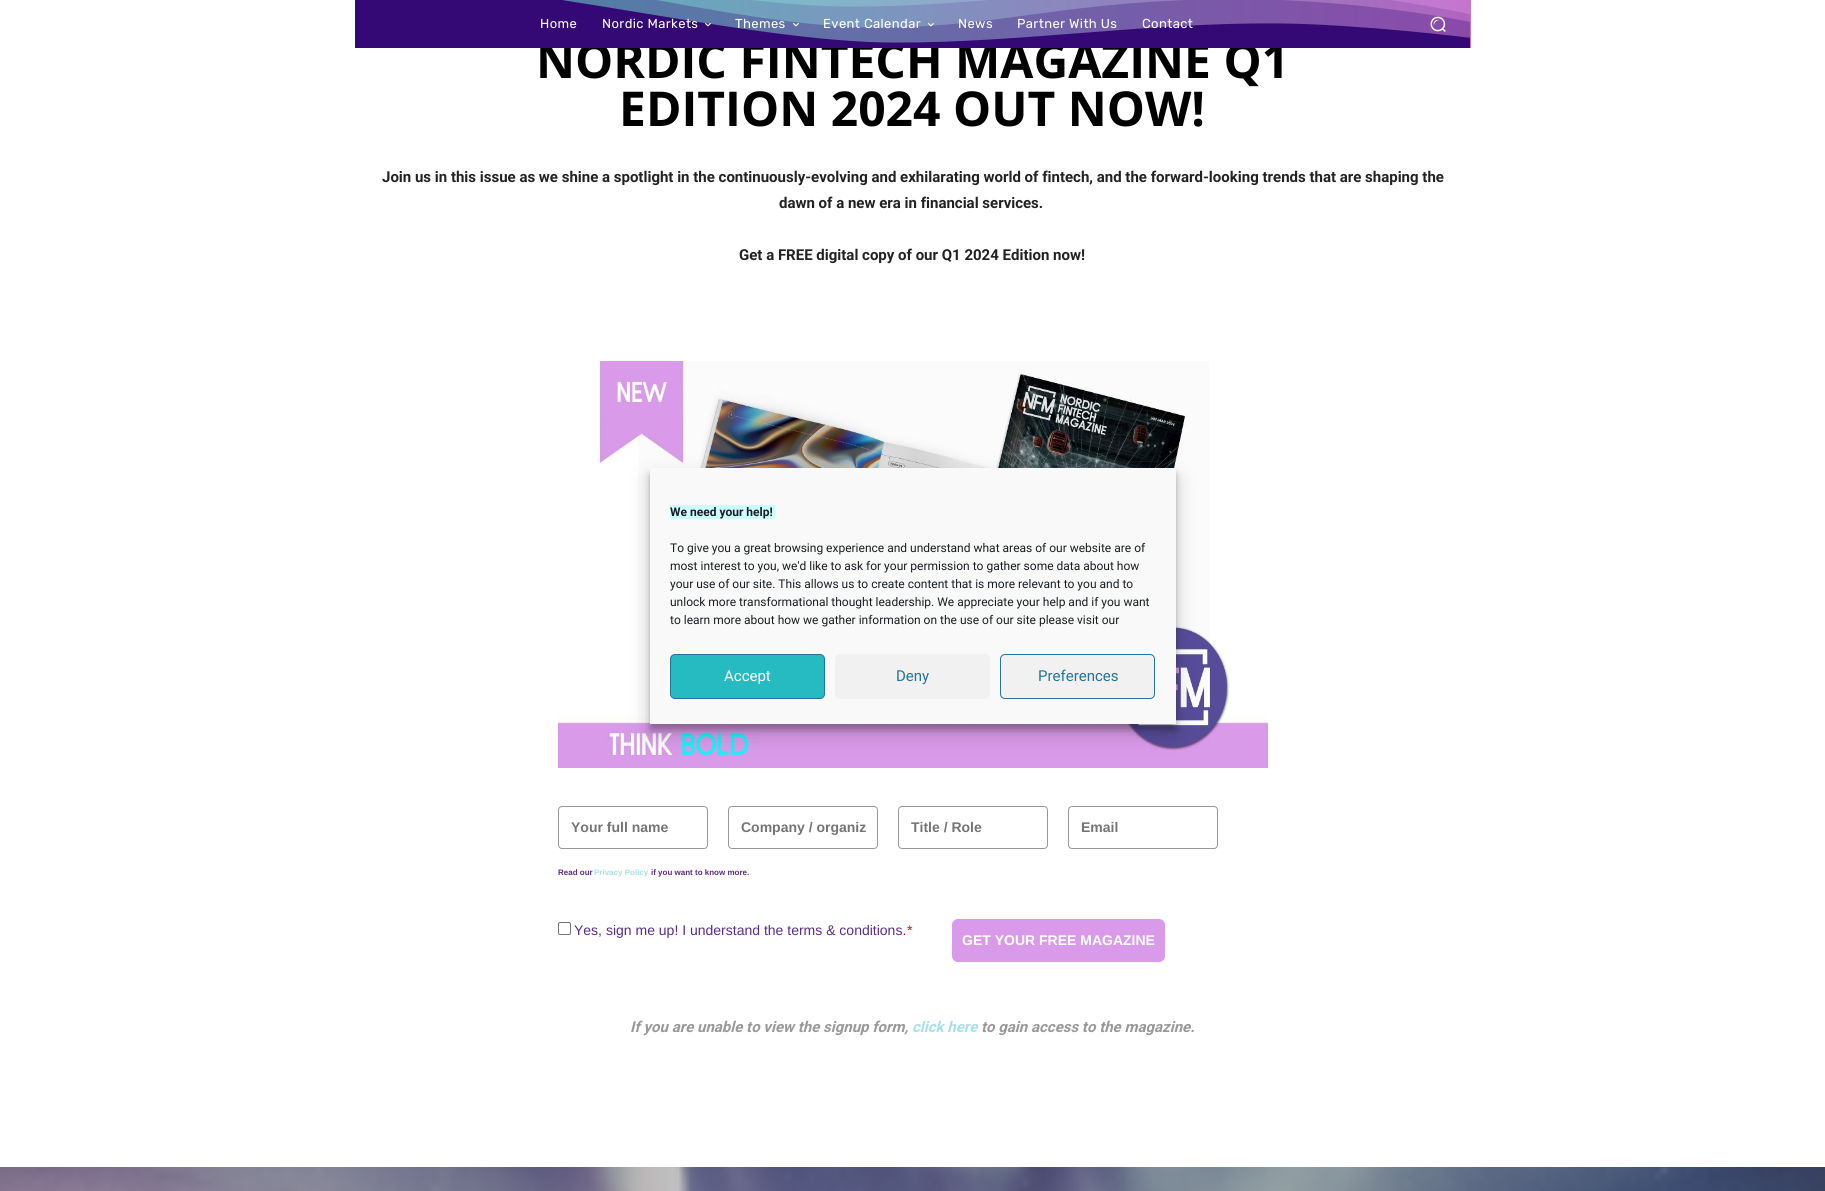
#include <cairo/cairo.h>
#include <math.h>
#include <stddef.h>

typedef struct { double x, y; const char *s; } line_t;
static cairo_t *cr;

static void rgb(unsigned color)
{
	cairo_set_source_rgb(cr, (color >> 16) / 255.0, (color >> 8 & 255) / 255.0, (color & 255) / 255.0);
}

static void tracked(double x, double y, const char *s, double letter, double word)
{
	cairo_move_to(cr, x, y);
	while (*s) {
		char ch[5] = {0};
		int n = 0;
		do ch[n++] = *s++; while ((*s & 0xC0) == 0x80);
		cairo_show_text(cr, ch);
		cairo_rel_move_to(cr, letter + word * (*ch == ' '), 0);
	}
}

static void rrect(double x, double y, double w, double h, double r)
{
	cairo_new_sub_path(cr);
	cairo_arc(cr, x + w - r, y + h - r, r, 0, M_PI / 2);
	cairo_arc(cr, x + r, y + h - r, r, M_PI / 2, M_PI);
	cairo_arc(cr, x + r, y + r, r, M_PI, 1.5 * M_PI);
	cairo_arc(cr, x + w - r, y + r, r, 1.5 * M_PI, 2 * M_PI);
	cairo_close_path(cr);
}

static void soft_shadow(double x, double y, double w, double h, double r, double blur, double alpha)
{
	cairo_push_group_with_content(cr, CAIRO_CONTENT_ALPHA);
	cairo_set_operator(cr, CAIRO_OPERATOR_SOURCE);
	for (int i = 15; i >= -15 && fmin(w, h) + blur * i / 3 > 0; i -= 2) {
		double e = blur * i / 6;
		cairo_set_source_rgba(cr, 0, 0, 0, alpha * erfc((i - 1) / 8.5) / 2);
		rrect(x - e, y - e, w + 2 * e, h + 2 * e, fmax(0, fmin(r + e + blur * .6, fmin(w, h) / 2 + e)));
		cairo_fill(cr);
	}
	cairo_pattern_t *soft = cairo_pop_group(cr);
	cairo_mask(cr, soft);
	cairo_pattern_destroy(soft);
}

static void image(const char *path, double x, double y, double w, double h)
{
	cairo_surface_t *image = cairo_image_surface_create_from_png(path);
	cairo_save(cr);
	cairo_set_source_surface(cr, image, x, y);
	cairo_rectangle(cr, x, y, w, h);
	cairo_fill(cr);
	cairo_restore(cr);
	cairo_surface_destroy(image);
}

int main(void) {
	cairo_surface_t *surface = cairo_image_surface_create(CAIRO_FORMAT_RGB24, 1825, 1191);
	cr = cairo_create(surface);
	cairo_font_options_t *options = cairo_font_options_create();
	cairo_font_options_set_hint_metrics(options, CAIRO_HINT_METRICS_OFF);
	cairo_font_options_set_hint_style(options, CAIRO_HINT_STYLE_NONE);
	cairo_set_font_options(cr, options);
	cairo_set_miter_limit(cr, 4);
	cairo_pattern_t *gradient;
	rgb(0xffffff);
	cairo_paint(cr);
	image("img/6.png", 558, 361, 710, 407);
	rrect(558.5, 806.5, 149, 42, 3.5);
	rgb(0x979797);
	cairo_set_line_width(cr, 1);
	cairo_stroke(cr);
	rrect(728.5, 806.5, 149, 42, 3.5);
	cairo_stroke(cr);
	rrect(898.5, 806.5, 149, 42, 3.5);
	cairo_stroke(cr);
	rrect(1068.5, 806.5, 149, 42, 3.5);
	cairo_stroke(cr);
	rrect(558.5, 922.5, 12, 12, 1.5);
	rgb(0x767676);
	cairo_stroke(cr);
	rgb(0xda9aea);
	rrect(952, 919, 213, 43, 6);
	cairo_fill(cr);
	rgb(0xb8b8b8);
	cairo_rectangle(cr, 0, 1167, 1825, 24);
	cairo_fill(cr);
	image("img/7.png", 0, 1167, 1825, 24);
	rgb(0x000000);
	soft_shadow(650, 474, 526, 256, 0, 3, 0.23);
	soft_shadow(650, 478, 526, 256, 0, 10, 0.19);
	rgb(0xf9f9f9);
	cairo_rectangle(cr, 650, 468, 526, 256);
	cairo_fill(cr);
	rgb(0xccffff);
	cairo_rectangle(cr, 670, 505, 105, 14);
	cairo_fill(cr);
	rgb(0x26bac1);
	rrect(670.5, 654.5, 154, 44, 4.5);
	cairo_fill_preserve(cr);
	rgb(0x21759b);
	cairo_stroke(cr);
	rgb(0xf1f1f1);
	rrect(835, 654, 155, 45, 5);
	cairo_fill(cr);
	rrect(1000.5, 654.5, 154, 44, 4.5);
	cairo_fill_preserve(cr);
	rgb(0x21759b);
	cairo_stroke(cr);
	cairo_select_font_face(cr, "Open Sans", CAIRO_FONT_SLANT_NORMAL, CAIRO_FONT_WEIGHT_BOLD);
	cairo_set_font_size(cr, 48);
	rgb(0x000000);
	cairo_move_to(cr, 536, 78);
	cairo_show_text(cr, "NORDIC FINTECH MAGAZINE Q1");
	gradient = cairo_pattern_create_linear(1471, 24, 355, 24);
	cairo_pattern_add_color_stop_rgba(gradient, 0, 0.773, 0.459, 0.808, 1);
	cairo_pattern_add_color_stop_rgba(gradient, 1, 0.318, 0.886, 0.784, 1);
	cairo_set_source(cr, gradient);
	cairo_pattern_destroy(gradient);
	cairo_rectangle(cr, 561, 0, 910, 48);
	cairo_fill(cr);
	image("img/1.png", 355, 0, 1115, 48);
	image("img/5.png", 1430, 16, 16, 16);
	cairo_select_font_face(cr, "Rubik", CAIRO_FONT_SLANT_NORMAL, CAIRO_FONT_WEIGHT_NORMAL);
	cairo_set_font_size(cr, 13);
	rgb(0xffffff);
	{
		static const line_t items[] = {
			{1142, 28, "Contact"},
			{1017, 28, "Partner With Us"},
			{958, 28, "News"},
		};
		for (size_t i = 0; i < sizeof items / sizeof *items; i++) {
			tracked(items[i].x, items[i].y, items[i].s, 0.4, 0);
		}
	}
	image("img/4.png", 928, 23, 6, 4);
	tracked(823, 28, "Event Calendar", 0.4, 0);
	image("img/3.png", 793, 23, 6, 4);
	tracked(735, 28, "Themes", 0.4, 0);
	image("img/2.png", 705, 23, 6, 4);
	tracked(602, 28, "Nordic Markets", 0.4, 0);
	tracked(540, 28, "Home", 0.4, 0);
	cairo_select_font_face(cr, "Open Sans", CAIRO_FONT_SLANT_NORMAL, CAIRO_FONT_WEIGHT_BOLD);
	cairo_set_font_size(cr, 48);
	rgb(0x000000);
	cairo_move_to(cr, 619, 126);
	cairo_show_text(cr, "EDITION 2024 OUT NOW!");
	cairo_select_font_face(cr, "Roboto", CAIRO_FONT_SLANT_NORMAL, CAIRO_FONT_WEIGHT_BOLD);
	cairo_set_font_size(cr, 15);
	rgb(0x222222);
	{
		static const line_t items[] = {
			{382, 182, "Join us in this issue as we shine a spotlight in the continuously-evolving and exhilarating world of fintech, and the forward-looking trends that are shaping the"},
			{779, 208, "dawn of a new era in financial services."},
			{739, 260, "Get a FREE digital copy of our Q1 2024 Edition now!"},
		};
		for (size_t i = 0; i < sizeof items / sizeof *items; i++) {
			cairo_move_to(cr, items[i].x, items[i].y);
			cairo_show_text(cr, items[i].s);
		}
	}
	cairo_select_font_face(cr, "Liberation Sans", CAIRO_FONT_SLANT_NORMAL, CAIRO_FONT_WEIGHT_BOLD);
	cairo_set_font_size(cr, 14);
	rgb(0x757575);
	{
		static const line_t items[] = {
			{571, 832, "Your full name"},
			{741, 832, "Company / organiz"},
			{911, 832, "Title / Role"},
			{1081, 832, "Email"},
		};
		for (size_t i = 0; i < sizeof items / sizeof *items; i++) {
			cairo_move_to(cr, items[i].x, items[i].y);
			cairo_show_text(cr, items[i].s);
		}
	}
	cairo_set_font_size(cr, 8);
	rgb(0x592d83);
	cairo_move_to(cr, 558, 875);
	cairo_show_text(cr, "Read our");
	rgb(0xa7e0e9);
	cairo_move_to(cr, 594, 875);
	cairo_show_text(cr, "Privacy Policy");
	rgb(0x592d83);
	cairo_move_to(cr, 651, 875);
	cairo_show_text(cr, "if you want to know more.");
	cairo_select_font_face(cr, "Liberation Sans", CAIRO_FONT_SLANT_NORMAL, CAIRO_FONT_WEIGHT_NORMAL);
	cairo_set_font_size(cr, 14);
	cairo_move_to(cr, 574, 935);
	cairo_show_text(cr, "Yes, sign me up! I understand the terms & conditions.");
	rgb(0xff0000);
	cairo_move_to(cr, 907, 935);
	cairo_show_text(cr, "*");
	cairo_select_font_face(cr, "Liberation Sans", CAIRO_FONT_SLANT_NORMAL, CAIRO_FONT_WEIGHT_BOLD);
	rgb(0xffffff);
	cairo_move_to(cr, 962, 945);
	cairo_show_text(cr, "GET YOUR FREE MAGAZINE");
	cairo_select_font_face(cr, "Roboto", CAIRO_FONT_SLANT_ITALIC, CAIRO_FONT_WEIGHT_BOLD);
	cairo_set_font_size(cr, 15);
	rgb(0x999999);
	cairo_move_to(cr, 630, 1032);
	cairo_show_text(cr, "If you are unable to view the signup form,");
	rgb(0xa7e0e9);
	cairo_move_to(cr, 912, 1032);
	cairo_show_text(cr, "click here");
	rgb(0x999999);
	cairo_move_to(cr, 981, 1032);
	cairo_show_text(cr, "to gain access to the magazine.");
	cairo_select_font_face(cr, "Roboto", CAIRO_FONT_SLANT_NORMAL, CAIRO_FONT_WEIGHT_BOLD);
	cairo_set_font_size(cr, 12);
	rgb(0x191e23);
	cairo_move_to(cr, 670, 516);
	cairo_show_text(cr, "We need your help!");
	cairo_select_font_face(cr, "Roboto", CAIRO_FONT_SLANT_NORMAL, CAIRO_FONT_WEIGHT_NORMAL);
	{
		static const line_t items[] = {
			{670, 552, "To give you a great browsing experience and understand what areas of our website are of"},
			{670, 570, "most interest to you, we'd like to ask for your permission to gather some data about how"},
			{670, 588, "your use of our site. This allows us to create content that is more relevant to you and to"},
			{670, 606, "unlock more transformational thought leadership. We appreciate your help and if you want"},
			{670, 624, "to learn more about how we gather information on the use of our site please visit our"},
		};
		for (size_t i = 0; i < sizeof items / sizeof *items; i++) {
			cairo_move_to(cr, items[i].x, items[i].y);
			cairo_show_text(cr, items[i].s);
		}
	}
	cairo_set_font_size(cr, 15);
	rgb(0xffffff);
	cairo_move_to(cr, 724, 681);
	cairo_show_text(cr, "Accept");
	rgb(0x21759b);
	cairo_move_to(cr, 896, 681);
	cairo_show_text(cr, "Deny");
	cairo_move_to(cr, 1038, 681);
	cairo_show_text(cr, "Preferences");
	cairo_surface_write_to_png(surface, "page.png");
	cairo_font_options_destroy(options);
	cairo_destroy(cr);
	cairo_surface_destroy(surface);
	return 0;
}
